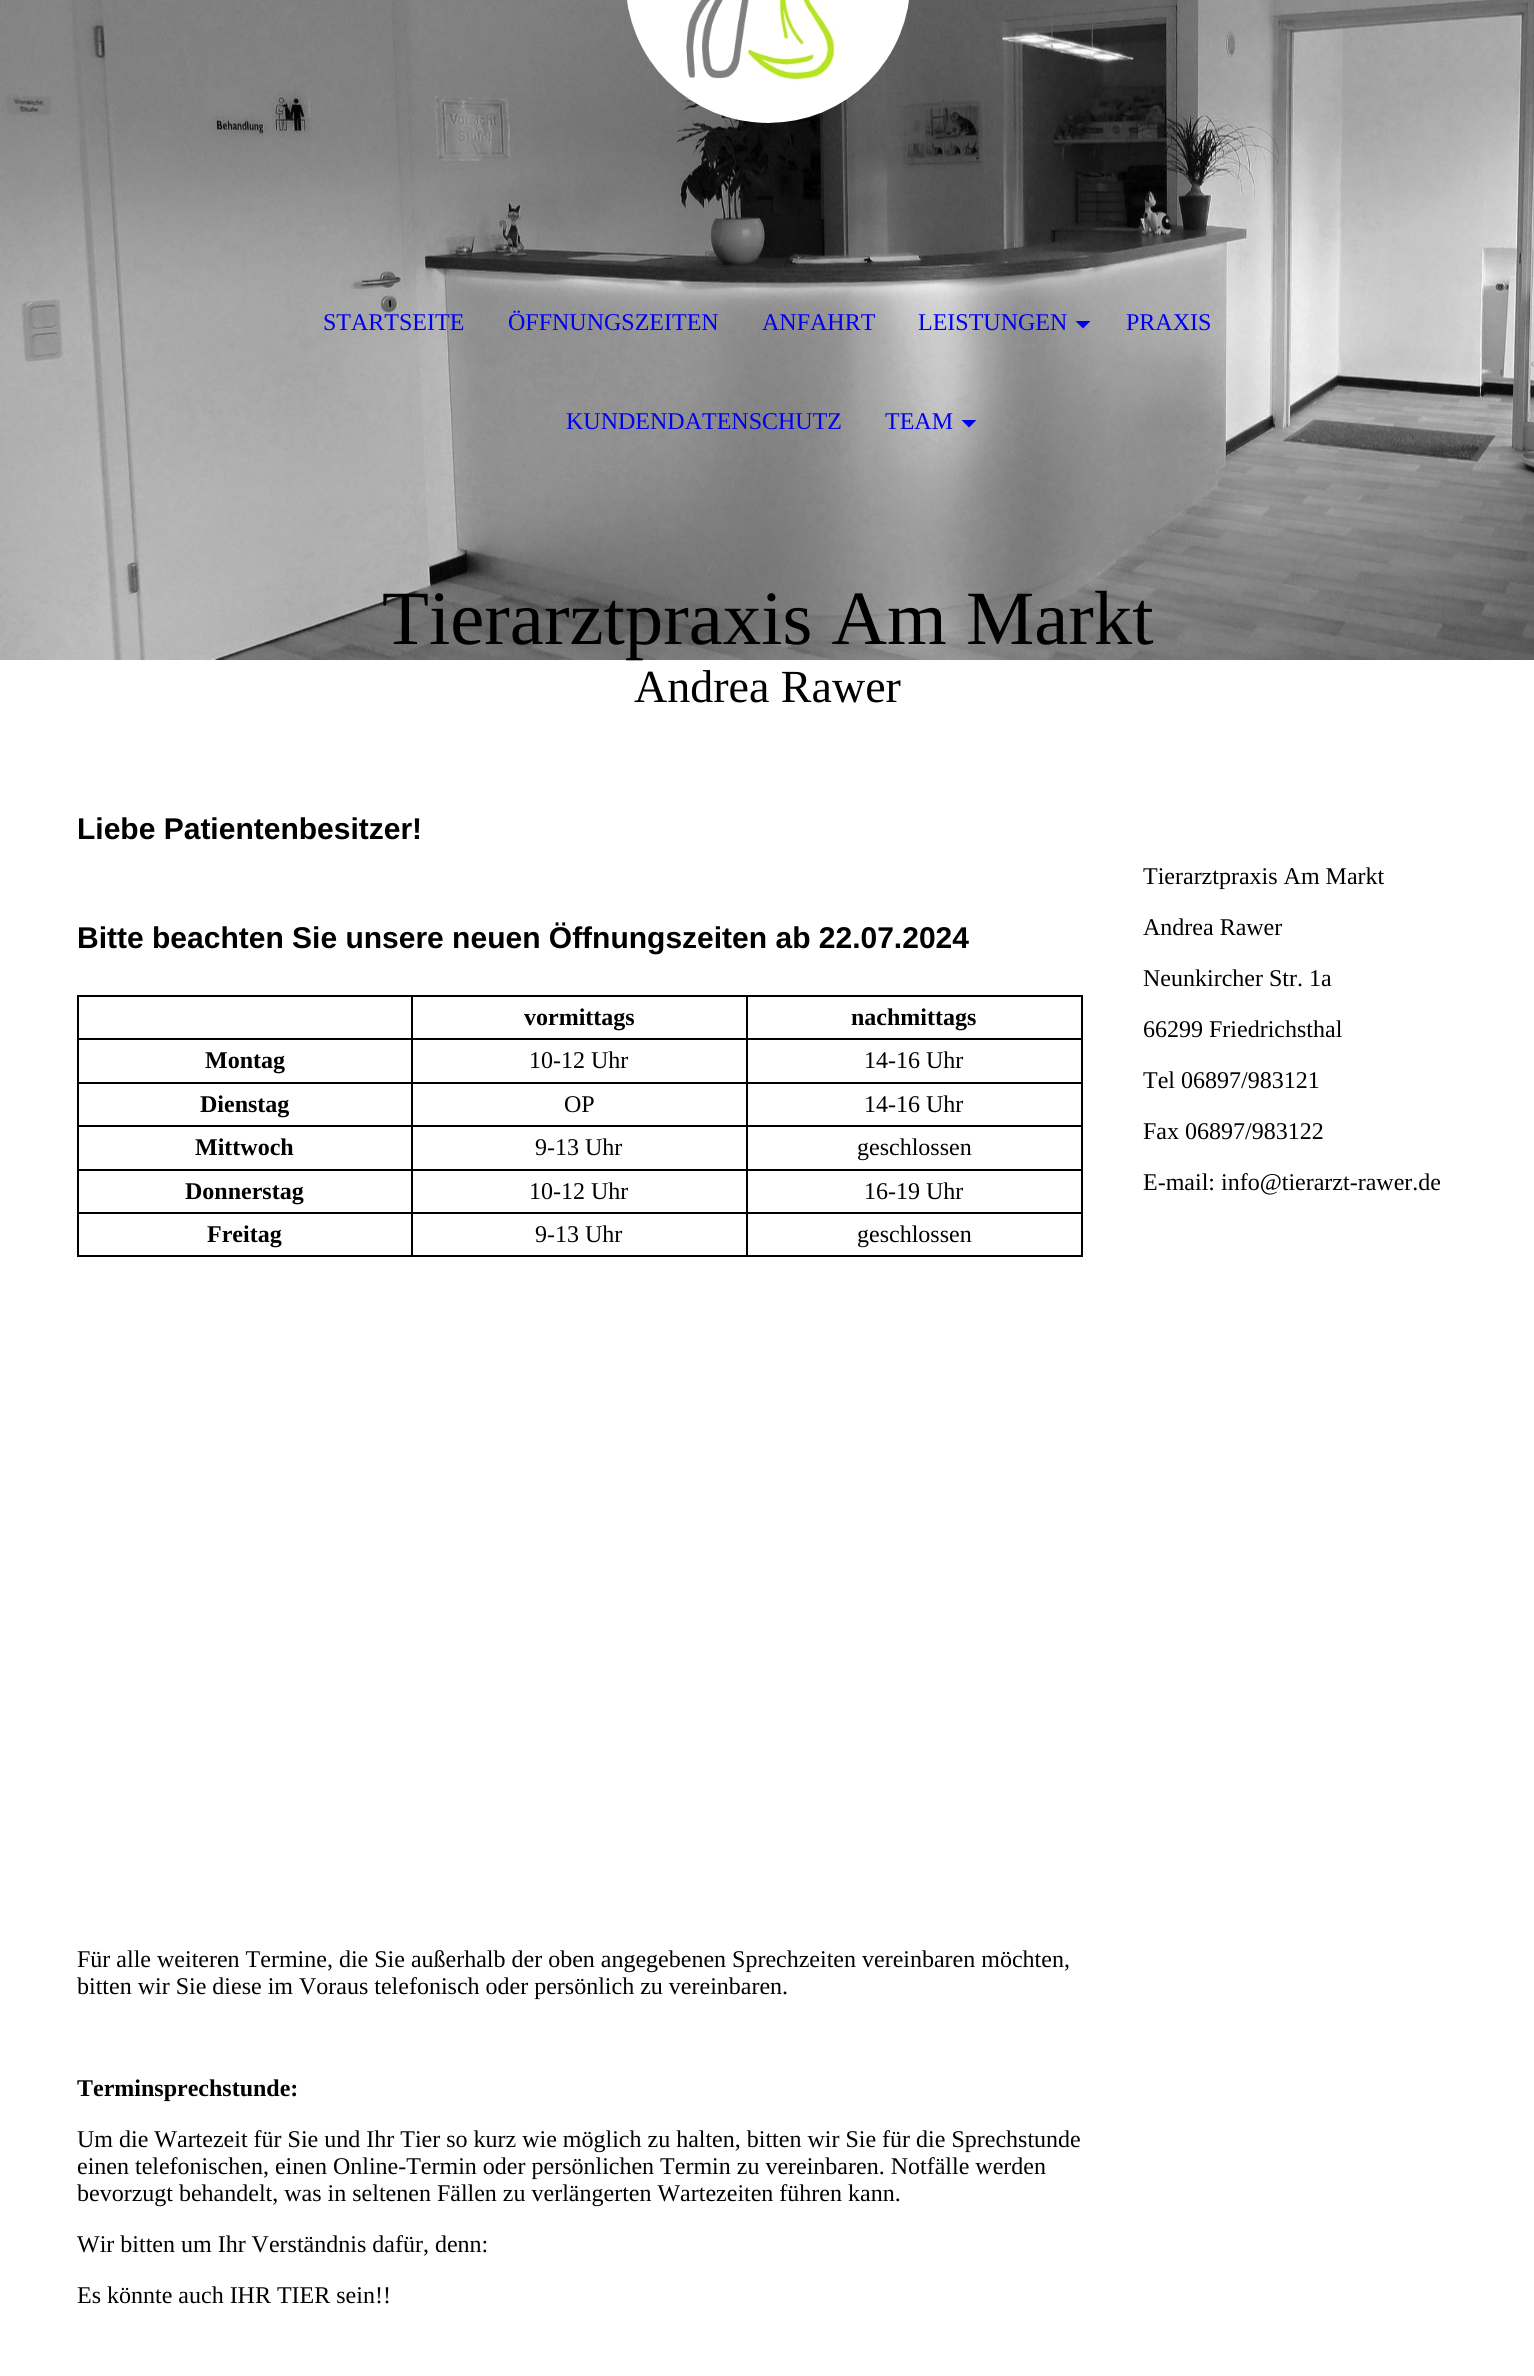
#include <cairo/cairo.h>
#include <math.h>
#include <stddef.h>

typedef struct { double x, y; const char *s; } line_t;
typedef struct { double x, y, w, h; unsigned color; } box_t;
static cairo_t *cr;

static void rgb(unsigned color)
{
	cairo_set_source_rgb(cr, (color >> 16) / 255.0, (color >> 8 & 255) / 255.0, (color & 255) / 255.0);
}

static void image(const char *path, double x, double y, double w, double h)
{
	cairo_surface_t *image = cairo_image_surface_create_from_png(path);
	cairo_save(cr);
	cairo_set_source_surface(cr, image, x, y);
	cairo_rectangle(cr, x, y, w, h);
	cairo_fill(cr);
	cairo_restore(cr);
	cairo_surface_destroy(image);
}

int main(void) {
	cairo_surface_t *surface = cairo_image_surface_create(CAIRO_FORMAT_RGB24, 1534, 2376);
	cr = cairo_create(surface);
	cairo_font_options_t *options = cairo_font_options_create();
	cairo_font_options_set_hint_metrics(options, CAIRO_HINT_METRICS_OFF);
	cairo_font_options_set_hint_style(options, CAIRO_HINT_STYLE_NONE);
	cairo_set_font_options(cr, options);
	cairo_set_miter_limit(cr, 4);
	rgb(0xffffff);
	cairo_paint(cr);
	image("img/1.png", 0, 0, 1534, 660);
	image("img/2.png", 627, 0, 282, 123);
	rgb(0x0000ee);
	cairo_new_path(cr);
	cairo_move_to(cr, 1075.5, 321);
	cairo_line_to(cr, 1090.5, 321);
	cairo_line_to(cr, 1083, 328.5);
	cairo_close_path(cr);
	cairo_fill(cr);
	cairo_new_path(cr);
	cairo_move_to(cr, 961.5, 420);
	cairo_line_to(cr, 976.5, 420);
	cairo_line_to(cr, 969, 427.5);
	cairo_close_path(cr);
	cairo_fill(cr);
	cairo_rectangle(cr, 78, 996, 1004, 260);
	rgb(0x000000);
	cairo_stroke(cr);
	{
		static const box_t items[] = {
			{411, 996, 2, 87, 0x000000},
			{78, 1038, 335, 2, 0x000000},
			{746, 996, 2, 87, 0x000000},
			{413, 1038, 669, 2, 0x000000},
			{78, 1082, 1004, 2, 0x000000},
			{411, 1083, 2, 87, 0x000000},
			{78, 1125, 335, 2, 0x000000},
			{746, 1083, 2, 87, 0x000000},
			{413, 1125, 669, 2, 0x000000},
			{78, 1169, 1004, 2, 0x000000},
			{411, 1170, 2, 86, 0x000000},
			{78, 1212, 335, 2, 0x000000},
			{746, 1170, 2, 86, 0x000000},
			{413, 1212, 669, 2, 0x000000},
		};
		for (size_t i = 0; i < sizeof items / sizeof *items; i++) {
			rgb(items[i].color);
			cairo_rectangle(cr, items[i].x, items[i].y, items[i].w, items[i].h);
			cairo_fill(cr);
		}
	}
	cairo_select_font_face(cr, "Liberation Serif", CAIRO_FONT_SLANT_NORMAL, CAIRO_FONT_WEIGHT_NORMAL);
	cairo_set_font_size(cr, 24);
	rgb(0x0000ee);
	{
		static const line_t items[] = {
			{323, 330, "STARTSEITE"},
			{508, 330, "ÖFFNUNGSZEITEN"},
			{762, 330, "ANFAHRT"},
			{918, 330, "LEISTUNGEN"},
			{1126, 330, "PRAXIS"},
			{566, 429, "KUNDENDATENSCHUTZ"},
			{885, 429, "TEAM"},
		};
		for (size_t i = 0; i < sizeof items / sizeof *items; i++) {
			cairo_move_to(cr, items[i].x, items[i].y);
			cairo_show_text(cr, items[i].s);
		}
	}
	cairo_set_font_size(cr, 76.75);
	rgb(0x000000);
	cairo_move_to(cr, 382, 644);
	cairo_show_text(cr, "Tierarztpraxis Am Markt");
	cairo_set_font_size(cr, 46);
	cairo_move_to(cr, 634, 702);
	cairo_show_text(cr, "Andrea Rawer");
	cairo_select_font_face(cr, "Liberation Sans", CAIRO_FONT_SLANT_NORMAL, CAIRO_FONT_WEIGHT_BOLD);
	cairo_set_font_size(cr, 30);
	cairo_move_to(cr, 77, 839);
	cairo_show_text(cr, "Liebe Patientenbesitzer!");
	cairo_move_to(cr, 77, 948);
	cairo_show_text(cr, "Bitte beachten Sie unsere neuen Öffnungszeiten ab 22.07.2024");
	cairo_select_font_face(cr, "Liberation Serif", CAIRO_FONT_SLANT_NORMAL, CAIRO_FONT_WEIGHT_BOLD);
	cairo_set_font_size(cr, 24);
	{
		static const line_t items[] = {
			{524, 1025, "vormittags"},
			{851, 1025, "nachmittags"},
			{205, 1068, "Montag"},
		};
		for (size_t i = 0; i < sizeof items / sizeof *items; i++) {
			cairo_move_to(cr, items[i].x, items[i].y);
			cairo_show_text(cr, items[i].s);
		}
	}
	cairo_select_font_face(cr, "Liberation Serif", CAIRO_FONT_SLANT_NORMAL, CAIRO_FONT_WEIGHT_NORMAL);
	cairo_move_to(cr, 529, 1068);
	cairo_show_text(cr, "10-12 Uhr");
	cairo_move_to(cr, 864, 1068);
	cairo_show_text(cr, "14-16 Uhr");
	cairo_select_font_face(cr, "Liberation Serif", CAIRO_FONT_SLANT_NORMAL, CAIRO_FONT_WEIGHT_BOLD);
	cairo_move_to(cr, 200, 1112);
	cairo_show_text(cr, "Dienstag");
	cairo_select_font_face(cr, "Liberation Serif", CAIRO_FONT_SLANT_NORMAL, CAIRO_FONT_WEIGHT_NORMAL);
	cairo_move_to(cr, 564, 1112);
	cairo_show_text(cr, "OP");
	cairo_move_to(cr, 864, 1112);
	cairo_show_text(cr, "14-16 Uhr");
	cairo_select_font_face(cr, "Liberation Serif", CAIRO_FONT_SLANT_NORMAL, CAIRO_FONT_WEIGHT_BOLD);
	cairo_move_to(cr, 195, 1155);
	cairo_show_text(cr, "Mittwoch");
	cairo_select_font_face(cr, "Liberation Serif", CAIRO_FONT_SLANT_NORMAL, CAIRO_FONT_WEIGHT_NORMAL);
	cairo_move_to(cr, 535, 1155);
	cairo_show_text(cr, "9-13 Uhr");
	cairo_move_to(cr, 857, 1155);
	cairo_show_text(cr, "geschlossen");
	cairo_select_font_face(cr, "Liberation Serif", CAIRO_FONT_SLANT_NORMAL, CAIRO_FONT_WEIGHT_BOLD);
	cairo_move_to(cr, 185, 1199);
	cairo_show_text(cr, "Donnerstag");
	cairo_select_font_face(cr, "Liberation Serif", CAIRO_FONT_SLANT_NORMAL, CAIRO_FONT_WEIGHT_NORMAL);
	cairo_move_to(cr, 529, 1199);
	cairo_show_text(cr, "10-12 Uhr");
	cairo_move_to(cr, 864, 1199);
	cairo_show_text(cr, "16-19 Uhr");
	cairo_select_font_face(cr, "Liberation Serif", CAIRO_FONT_SLANT_NORMAL, CAIRO_FONT_WEIGHT_BOLD);
	cairo_move_to(cr, 207, 1242);
	cairo_show_text(cr, "Freitag");
	cairo_select_font_face(cr, "Liberation Serif", CAIRO_FONT_SLANT_NORMAL, CAIRO_FONT_WEIGHT_NORMAL);
	{
		static const line_t items[] = {
			{535, 1242, "9-13 Uhr"},
			{857, 1242, "geschlossen"},
			{77, 1967, "Für alle weiteren Termine, die Sie außerhalb der oben angegebenen Sprechzeiten vereinbaren möchten,"},
			{77, 1994, "bitten wir Sie diese im Voraus telefonisch oder persönlich zu vereinbaren."},
		};
		for (size_t i = 0; i < sizeof items / sizeof *items; i++) {
			cairo_move_to(cr, items[i].x, items[i].y);
			cairo_show_text(cr, items[i].s);
		}
	}
	cairo_select_font_face(cr, "Liberation Serif", CAIRO_FONT_SLANT_NORMAL, CAIRO_FONT_WEIGHT_BOLD);
	cairo_move_to(cr, 77, 2096);
	cairo_show_text(cr, "Terminsprechstunde:");
	cairo_select_font_face(cr, "Liberation Serif", CAIRO_FONT_SLANT_NORMAL, CAIRO_FONT_WEIGHT_NORMAL);
	{
		static const line_t items[] = {
			{77, 2147, "Um die Wartezeit für Sie und Ihr Tier so kurz wie möglich zu halten, bitten wir Sie für die Sprechstunde"},
			{77, 2174, "einen telefonischen, einen Online-Termin oder persönlichen Termin zu vereinbaren. Notfälle werden"},
			{77, 2201, "bevorzugt behandelt, was in seltenen Fällen zu verlängerten Wartezeiten führen kann."},
			{77, 2252, "Wir bitten um Ihr Verständnis dafür, denn:"},
			{77, 2303, "Es könnte auch IHR TIER sein!!"},
			{1143, 884, "Tierarztpraxis Am Markt"},
			{1143, 935, "Andrea Rawer"},
			{1143, 986, "Neunkircher Str. 1a"},
			{1143, 1037, "66299 Friedrichsthal"},
			{1143, 1088, "Tel 06897/983121"},
			{1143, 1139, "Fax 06897/983122"},
			{1143, 1190, "E-mail: info@tierarzt-rawer.de"},
		};
		for (size_t i = 0; i < sizeof items / sizeof *items; i++) {
			cairo_move_to(cr, items[i].x, items[i].y);
			cairo_show_text(cr, items[i].s);
		}
	}
	cairo_surface_write_to_png(surface, "page.png");
	cairo_font_options_destroy(options);
	cairo_destroy(cr);
	cairo_surface_destroy(surface);
	return 0;
}
